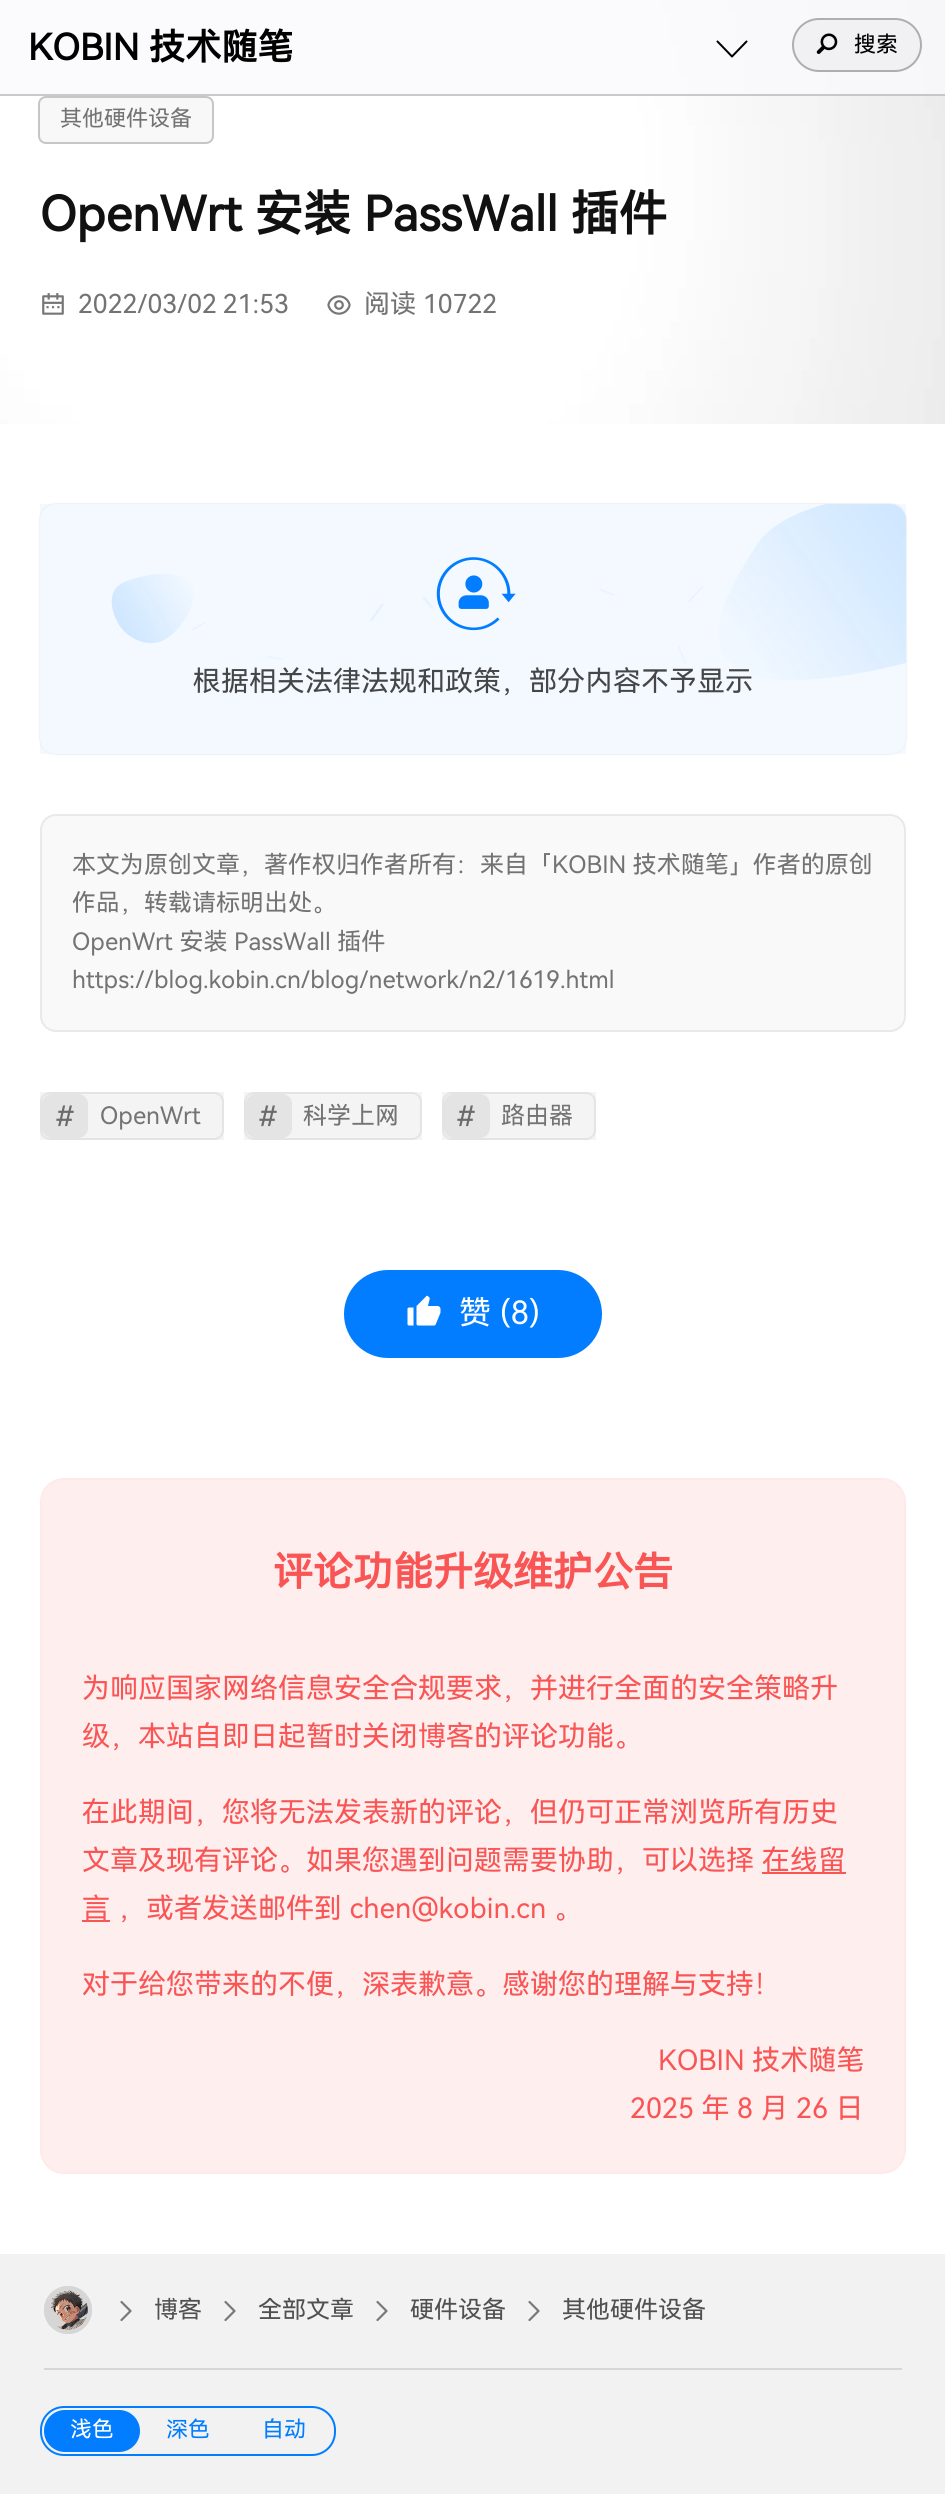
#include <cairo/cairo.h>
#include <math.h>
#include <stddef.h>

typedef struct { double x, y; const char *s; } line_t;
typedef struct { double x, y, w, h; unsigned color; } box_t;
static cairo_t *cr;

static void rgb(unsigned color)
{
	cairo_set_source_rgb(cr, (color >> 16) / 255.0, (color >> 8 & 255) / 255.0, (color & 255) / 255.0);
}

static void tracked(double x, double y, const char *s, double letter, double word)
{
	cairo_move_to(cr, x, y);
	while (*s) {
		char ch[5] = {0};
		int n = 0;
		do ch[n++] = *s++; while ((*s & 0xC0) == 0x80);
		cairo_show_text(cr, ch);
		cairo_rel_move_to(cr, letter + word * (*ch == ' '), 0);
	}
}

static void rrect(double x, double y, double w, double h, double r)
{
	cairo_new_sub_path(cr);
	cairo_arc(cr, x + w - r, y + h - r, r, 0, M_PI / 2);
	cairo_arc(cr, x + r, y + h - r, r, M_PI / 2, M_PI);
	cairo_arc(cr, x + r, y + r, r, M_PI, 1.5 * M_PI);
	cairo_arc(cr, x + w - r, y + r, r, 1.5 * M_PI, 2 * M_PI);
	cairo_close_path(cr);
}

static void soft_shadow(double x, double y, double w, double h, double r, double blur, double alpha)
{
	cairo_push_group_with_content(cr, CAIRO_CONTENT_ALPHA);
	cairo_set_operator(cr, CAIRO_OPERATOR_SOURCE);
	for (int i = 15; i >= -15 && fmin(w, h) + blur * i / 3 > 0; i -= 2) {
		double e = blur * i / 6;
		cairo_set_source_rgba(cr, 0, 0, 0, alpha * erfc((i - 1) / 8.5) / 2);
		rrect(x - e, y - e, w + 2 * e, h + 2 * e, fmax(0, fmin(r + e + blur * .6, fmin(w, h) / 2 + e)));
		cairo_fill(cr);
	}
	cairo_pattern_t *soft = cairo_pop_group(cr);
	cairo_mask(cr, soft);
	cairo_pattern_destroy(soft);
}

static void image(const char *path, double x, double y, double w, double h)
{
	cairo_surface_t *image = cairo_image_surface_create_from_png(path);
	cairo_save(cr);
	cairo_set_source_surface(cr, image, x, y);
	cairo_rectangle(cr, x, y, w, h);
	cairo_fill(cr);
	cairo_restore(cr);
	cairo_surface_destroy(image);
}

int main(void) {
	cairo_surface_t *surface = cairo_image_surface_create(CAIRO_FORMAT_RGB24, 945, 2494);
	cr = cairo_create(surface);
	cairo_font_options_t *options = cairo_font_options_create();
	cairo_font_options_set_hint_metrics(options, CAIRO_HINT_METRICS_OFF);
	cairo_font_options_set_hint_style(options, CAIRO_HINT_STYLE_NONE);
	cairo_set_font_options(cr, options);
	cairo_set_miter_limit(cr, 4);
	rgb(0xffffff);
	cairo_paint(cr);
	image("img/2.png", 0, 0, 945, 424);
	cairo_set_source_rgba(cr, 0.98, 0.98, 0.988, 0.8);
	cairo_rectangle(cr, 0, 0, 945, 96);
	cairo_fill(cr);
	cairo_set_source_rgba(cr, 0, 0, 0, 0.2);
	cairo_rectangle(cr, 0, 94, 945, 2);
	cairo_fill(cr);
	cairo_new_path(cr);
	cairo_move_to(cr, 746.5, 41.5);
	cairo_line_to(cr, 732, 56.5);
	cairo_line_to(cr, 717.5, 41.5);
	rgb(0x000000);
	cairo_set_line_cap(cr, CAIRO_LINE_CAP_ROUND);
	cairo_set_line_join(cr, CAIRO_LINE_JOIN_ROUND);
	cairo_stroke(cr);
	rgb(0xf1f1f3);
	rrect(792, 18, 130, 54, 27);
	cairo_fill(cr);
	rrect(793, 19, 128, 52, 26);
	cairo_set_source_rgba(cr, 0.067, 0.067, 0.067, 0.3);
	cairo_set_line_cap(cr, CAIRO_LINE_CAP_BUTT);
	cairo_set_line_join(cr, CAIRO_LINE_JOIN_MITER);
	cairo_stroke(cr);
	image("img/1.png", 816, 33, 22, 21);
	rgb(0xf8f8f8);
	rrect(38, 96, 176, 48, 8);
	cairo_fill(cr);
	rrect(39, 97, 174, 46, 7);
	cairo_set_source_rgba(cr, 0, 0, 0, 0.2);
	cairo_stroke(cr);
	image("img/3.png", 42, 293, 22, 22);
	image("img/4.png", 327, 295, 24, 20);
	cairo_save(cr);
	cairo_set_fill_rule(cr, CAIRO_FILL_RULE_EVEN_ODD);
	cairo_new_path(cr);
	cairo_move_to(cr, 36, 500);
	cairo_line_to(cr, 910, 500);
	cairo_line_to(cr, 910, 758);
	cairo_line_to(cr, 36, 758);
	cairo_close_path(cr);
	cairo_move_to(cr, 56, 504);
	cairo_line_to(cr, 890, 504);
	cairo_curve_to(cr, 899, 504, 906, 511, 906, 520);
	cairo_line_to(cr, 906, 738);
	cairo_curve_to(cr, 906, 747, 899, 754, 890, 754);
	cairo_line_to(cr, 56, 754);
	cairo_curve_to(cr, 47, 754, 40, 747, 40, 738);
	cairo_line_to(cr, 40, 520);
	cairo_curve_to(cr, 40, 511, 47, 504, 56, 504);
	cairo_close_path(cr);
	cairo_clip(cr);
	rgb(0x000000);
	soft_shadow(40, 504, 866, 250, 16, 1, 0.15);
	cairo_restore(cr);
	cairo_set_source_rgba(cr, 0.008, 0.49, 1, 0.05);
	cairo_rectangle(cr, 40, 504, 866, 250);
	cairo_fill(cr);
	image("img/5.png", 111, 504, 795, 176);
	image("img/6.png", 436, 557, 80, 74);
	rgb(0xf9f9f9);
	rrect(40, 814, 866, 218, 16);
	cairo_fill(cr);
	rrect(41, 815, 864, 216, 15);
	cairo_set_source_rgba(cr, 0.102, 0.102, 0.102, 0.07);
	cairo_stroke(cr);
	cairo_set_source_rgba(cr, 0.102, 0.102, 0.102, 0.05);
	cairo_rectangle(cr, 40, 1092, 184, 48);
	cairo_fill(cr);
	rrect(41, 1093, 182, 46, 9);
	rgb(0xe4e4e4);
	cairo_stroke(cr);
	rrect(42, 1094, 46, 44, 10);
	cairo_fill(cr);
	cairo_set_source_rgba(cr, 0.102, 0.102, 0.102, 0.05);
	cairo_rectangle(cr, 244, 1092, 178, 48);
	cairo_fill(cr);
	rrect(245, 1093, 176, 46, 9);
	rgb(0xe4e4e4);
	cairo_stroke(cr);
	rrect(246, 1094, 46, 44, 10);
	cairo_fill(cr);
	cairo_set_source_rgba(cr, 0.102, 0.102, 0.102, 0.05);
	cairo_rectangle(cr, 442, 1092, 154, 48);
	cairo_fill(cr);
	rrect(443, 1093, 152, 46, 9);
	rgb(0xe4e4e4);
	cairo_stroke(cr);
	rrect(444, 1094, 46, 44, 10);
	cairo_fill(cr);
	rgb(0x027dff);
	rrect(345, 1271, 256, 86, 43);
	cairo_fill_preserve(cr);
	cairo_stroke(cr);
	image("img/7.png", 407, 1295, 34, 31);
	rgb(0xffeeee);
	rrect(41, 1479, 864, 694, 23);
	cairo_fill_preserve(cr);
	rgb(0xffe9e9);
	cairo_stroke(cr);
	{
		static const box_t items[] = {
			{762, 1872, 84, 2, 0xfa5555},
			{82, 1920, 28, 2, 0xfa5555},
			{0, 2254, 945, 240, 0xf2f2f2},
		};
		for (size_t i = 0; i < sizeof items / sizeof *items; i++) {
			rgb(items[i].color);
			cairo_rectangle(cr, items[i].x, items[i].y, items[i].w, items[i].h);
			cairo_fill(cr);
		}
	}
	rgb(0xd6d6d6);
	cairo_arc(cr, 68, 2310, 24, 0, 2 * M_PI);
	cairo_fill(cr);
	image("img/8.png", 50, 2290, 38, 40);
	cairo_arc(cr, 68, 2310, 22, 0, 2 * M_PI);
	cairo_set_line_width(cr, 4);
	cairo_stroke(cr);
	cairo_new_path(cr);
	cairo_move_to(cr, 121.5, 2302);
	cairo_line_to(cr, 130.5, 2311);
	cairo_line_to(cr, 121.5, 2320);
	rgb(0x797979);
	cairo_set_line_width(cr, 2.2);
	cairo_set_line_cap(cr, CAIRO_LINE_CAP_ROUND);
	cairo_set_line_join(cr, CAIRO_LINE_JOIN_ROUND);
	cairo_stroke(cr);
	cairo_new_path(cr);
	cairo_move_to(cr, 225.5, 2302);
	cairo_line_to(cr, 234.5, 2311);
	cairo_line_to(cr, 225.5, 2320);
	cairo_stroke(cr);
	cairo_new_path(cr);
	cairo_move_to(cr, 377.5, 2302);
	cairo_line_to(cr, 386.5, 2311);
	cairo_line_to(cr, 377.5, 2320);
	cairo_stroke(cr);
	cairo_new_path(cr);
	cairo_move_to(cr, 529.5, 2302);
	cairo_line_to(cr, 538.5, 2311);
	cairo_line_to(cr, 529.5, 2320);
	cairo_stroke(cr);
	rgb(0xd6d6d6);
	cairo_rectangle(cr, 44, 2368, 858, 2);
	cairo_fill(cr);
	rrect(41, 2407, 294, 48, 23);
	rgb(0x027dff);
	cairo_set_line_width(cr, 2);
	cairo_set_line_cap(cr, CAIRO_LINE_CAP_BUTT);
	cairo_set_line_join(cr, CAIRO_LINE_JOIN_MITER);
	cairo_stroke(cr);
	rrect(45, 2411, 94, 40, 20);
	cairo_fill_preserve(cr);
	cairo_stroke(cr);
	cairo_select_font_face(cr, "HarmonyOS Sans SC", CAIRO_FONT_SLANT_NORMAL, CAIRO_FONT_WEIGHT_BOLD);
	cairo_set_font_size(cr, 36);
	rgb(0x000000);
	cairo_move_to(cr, 28, 60);
	cairo_show_text(cr, "KOBIN 技术随笔");
	cairo_select_font_face(cr, "HarmonyOS Sans SC", CAIRO_FONT_SLANT_NORMAL, CAIRO_FONT_WEIGHT_NORMAL);
	cairo_set_font_size(cr, 22);
	cairo_move_to(cr, 854, 52);
	cairo_show_text(cr, "搜索");
	rgb(0x737373);
	cairo_move_to(cr, 60, 126);
	cairo_show_text(cr, "其他硬件设备");
	cairo_select_font_face(cr, "HarmonyOS Sans SC", CAIRO_FONT_SLANT_NORMAL, CAIRO_FONT_WEIGHT_BOLD);
	cairo_set_font_size(cr, 48);
	rgb(0x111111);
	cairo_move_to(cr, 40, 231);
	cairo_show_text(cr, "OpenWrt 安装 PassWall 插件");
	cairo_select_font_face(cr, "HarmonyOS Sans SC", CAIRO_FONT_SLANT_NORMAL, CAIRO_FONT_WEIGHT_NORMAL);
	cairo_set_font_size(cr, 26);
	rgb(0x737373);
	tracked(78, 313, "2022/03/02 21:53", 0, -1);
	cairo_move_to(cr, 364, 313);
	cairo_show_text(cr, "阅读 10722");
	cairo_set_font_size(cr, 28);
	rgb(0x454648);
	cairo_move_to(cr, 193, 691);
	cairo_show_text(cr, "根据相关法律法规和政策，部分内容不予显示");
	cairo_set_font_size(cr, 24);
	rgb(0x737373);
	{
		static const line_t items[] = {
			{72, 873, "本文为原创文章，著作权归作者所有：来自「KOBIN 技术随笔」作者的原创"},
			{72, 911, "作品，转载请标明出处。"},
			{72, 950, "OpenWrt 安装 PassWall 插件"},
			{72, 988, "https://blog.kobin.cn/blog/network/n2/1619.html"},
		};
		for (size_t i = 0; i < sizeof items / sizeof *items; i++) {
			cairo_move_to(cr, items[i].x, items[i].y);
			cairo_show_text(cr, items[i].s);
		}
	}
	cairo_set_font_size(cr, 28);
	rgb(0x6b6b6b);
	cairo_move_to(cr, 56, 1126);
	cairo_show_text(cr, "#");
	cairo_set_font_size(cr, 24);
	rgb(0x737373);
	cairo_move_to(cr, 100, 1124);
	cairo_show_text(cr, "OpenWrt");
	cairo_set_font_size(cr, 28);
	rgb(0x6b6b6b);
	cairo_move_to(cr, 259, 1126);
	cairo_show_text(cr, "#");
	cairo_set_font_size(cr, 24);
	rgb(0x737373);
	cairo_move_to(cr, 303, 1124);
	cairo_show_text(cr, "科学上网");
	cairo_set_font_size(cr, 28);
	rgb(0x6b6b6b);
	cairo_move_to(cr, 457, 1126);
	cairo_show_text(cr, "#");
	cairo_set_font_size(cr, 24);
	rgb(0x737373);
	cairo_move_to(cr, 501, 1124);
	cairo_show_text(cr, "路由器");
	cairo_set_font_size(cr, 32);
	rgb(0xffffff);
	cairo_move_to(cr, 459, 1324);
	cairo_show_text(cr, "赞 (8)");
	cairo_select_font_face(cr, "HarmonyOS Sans SC", CAIRO_FONT_SLANT_NORMAL, CAIRO_FONT_WEIGHT_BOLD);
	cairo_set_font_size(cr, 40);
	rgb(0xfa5555);
	cairo_move_to(cr, 273, 1586);
	cairo_show_text(cr, "评论功能升级维护公告");
	cairo_select_font_face(cr, "HarmonyOS Sans SC", CAIRO_FONT_SLANT_NORMAL, CAIRO_FONT_WEIGHT_NORMAL);
	cairo_set_font_size(cr, 28);
	{
		static const line_t items[] = {
			{82, 1698, "为响应国家网络信息安全合规要求，并进行全面的安全策略升"},
			{82, 1746, "级，本站自即日起暂时关闭博客的评论功能。"},
			{82, 1822, "在此期间，您将无法发表新的评论，但仍可正常浏览所有历史"},
			{82, 1870, "文章及现有评论。如果您遇到问题需要协助，可以选择"},
			{762, 1870, "在线留"},
			{82, 1918, "言"},
			{118, 1918, "，或者发送邮件到 chen@kobin.cn 。"},
			{82, 1994, "对于给您带来的不便，深表歉意。感谢您的理解与支持！"},
			{658, 2070, "KOBIN 技术随笔"},
			{630, 2118, "2025 年 8 月 26 日"},
		};
		for (size_t i = 0; i < sizeof items / sizeof *items; i++) {
			cairo_move_to(cr, items[i].x, items[i].y);
			cairo_show_text(cr, items[i].s);
		}
	}
	cairo_set_font_size(cr, 24);
	rgb(0x505050);
	{
		static const line_t items[] = {
			{154, 2318, "博客"},
			{258, 2318, "全部文章"},
			{410, 2318, "硬件设备"},
			{562, 2318, "其他硬件设备"},
		};
		for (size_t i = 0; i < sizeof items / sizeof *items; i++) {
			cairo_move_to(cr, items[i].x, items[i].y);
			cairo_show_text(cr, items[i].s);
		}
	}
	cairo_set_font_size(cr, 22);
	rgb(0xffffff);
	cairo_move_to(cr, 70, 2437);
	cairo_show_text(cr, "浅色");
	rgb(0x027dff);
	cairo_move_to(cr, 166, 2437);
	cairo_show_text(cr, "深色");
	cairo_move_to(cr, 262, 2437);
	cairo_show_text(cr, "自动");
	cairo_surface_write_to_png(surface, "page.png");
	cairo_font_options_destroy(options);
	cairo_destroy(cr);
	cairo_surface_destroy(surface);
	return 0;
}
